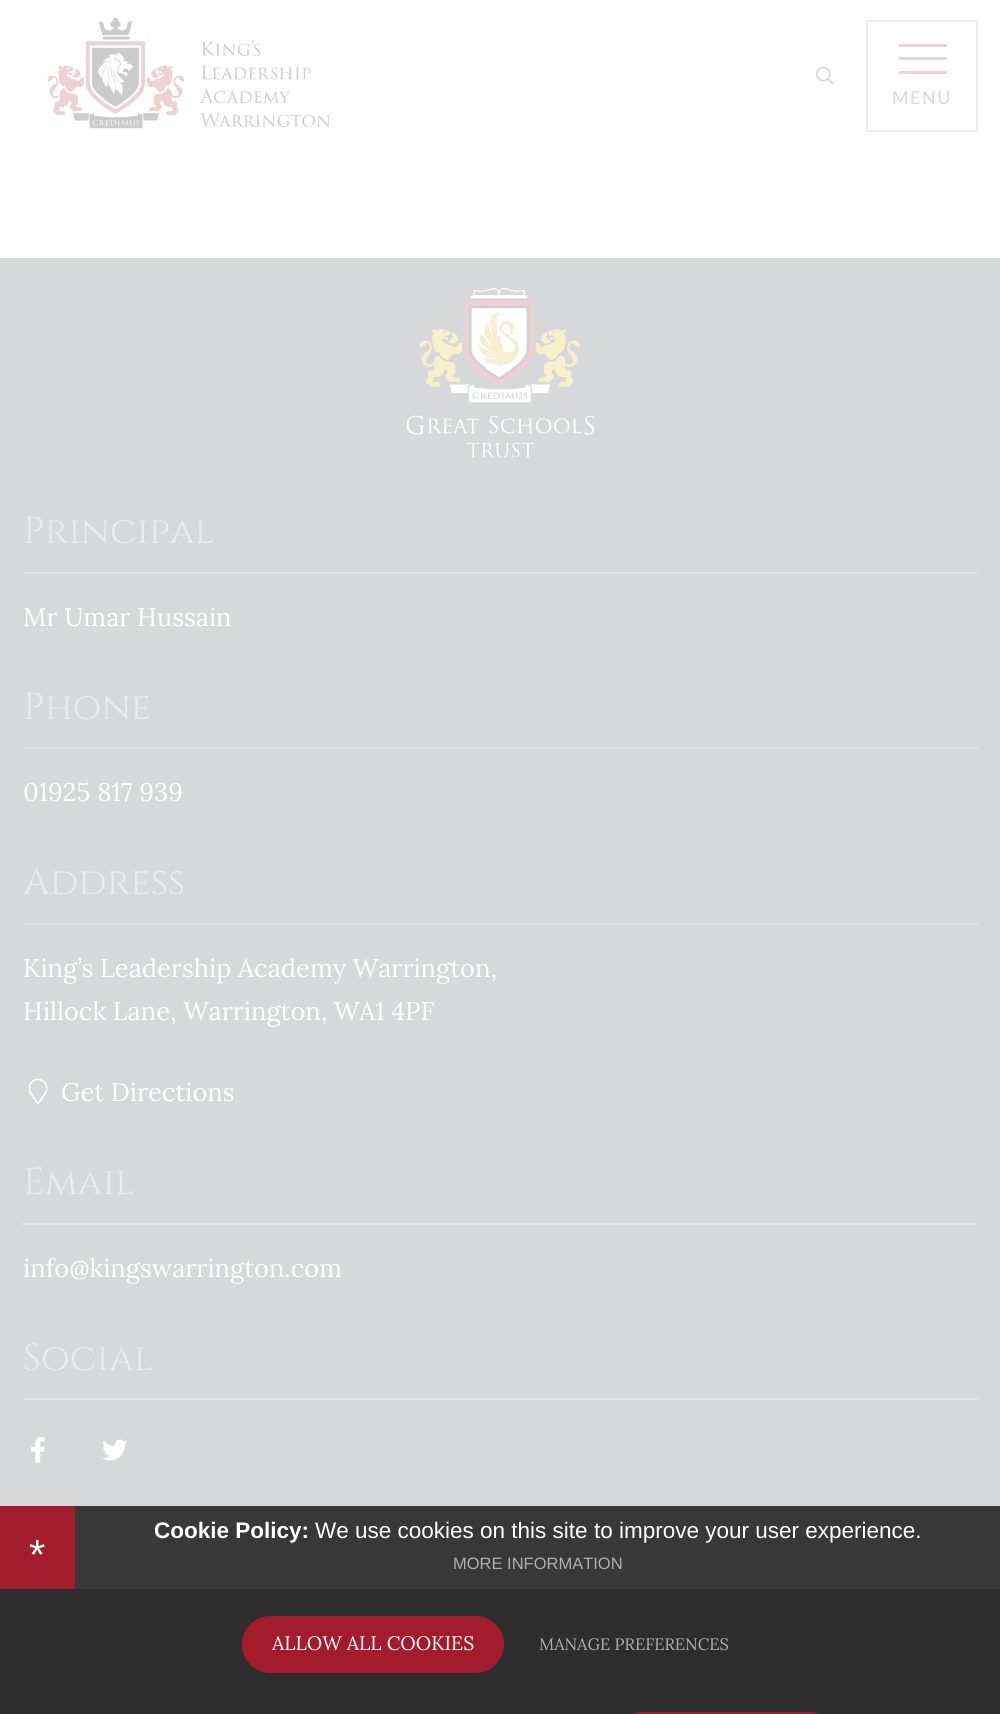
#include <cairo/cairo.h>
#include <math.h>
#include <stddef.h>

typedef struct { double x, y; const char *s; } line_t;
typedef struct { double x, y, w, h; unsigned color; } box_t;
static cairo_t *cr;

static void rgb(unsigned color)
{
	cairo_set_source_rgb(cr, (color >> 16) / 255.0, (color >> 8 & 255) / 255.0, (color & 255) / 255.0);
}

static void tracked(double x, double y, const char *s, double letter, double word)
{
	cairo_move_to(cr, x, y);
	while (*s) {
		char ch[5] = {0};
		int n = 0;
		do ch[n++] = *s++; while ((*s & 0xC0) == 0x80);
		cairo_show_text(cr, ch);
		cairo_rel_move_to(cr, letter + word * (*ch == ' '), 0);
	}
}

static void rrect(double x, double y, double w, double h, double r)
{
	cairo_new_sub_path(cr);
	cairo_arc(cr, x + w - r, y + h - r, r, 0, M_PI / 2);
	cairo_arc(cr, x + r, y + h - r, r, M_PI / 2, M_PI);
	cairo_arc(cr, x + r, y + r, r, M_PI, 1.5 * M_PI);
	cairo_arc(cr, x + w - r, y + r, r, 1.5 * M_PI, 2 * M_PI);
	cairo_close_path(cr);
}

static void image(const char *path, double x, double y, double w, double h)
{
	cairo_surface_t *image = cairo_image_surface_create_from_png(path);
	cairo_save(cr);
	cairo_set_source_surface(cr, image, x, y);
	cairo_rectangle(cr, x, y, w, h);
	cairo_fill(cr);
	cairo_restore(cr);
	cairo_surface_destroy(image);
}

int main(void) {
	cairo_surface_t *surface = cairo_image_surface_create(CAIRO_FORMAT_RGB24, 1000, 1714);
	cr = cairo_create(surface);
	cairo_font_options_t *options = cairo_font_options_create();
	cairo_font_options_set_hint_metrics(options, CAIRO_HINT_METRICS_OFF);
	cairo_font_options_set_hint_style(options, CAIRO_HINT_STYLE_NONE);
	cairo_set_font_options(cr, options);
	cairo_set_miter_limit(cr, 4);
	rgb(0xffffff);
	cairo_paint(cr);
	image("img/1.png", 47, 17, 283, 112);
	image("img/2.png", 816, 66, 18, 19);
	cairo_rectangle(cr, 867, 21, 110, 110);
	rgb(0xeceded);
	cairo_stroke(cr);
	{
		static const box_t items[] = {
			{899, 44, 48, 3, 0xecd2d5},
			{899, 57, 48, 3, 0xecd2d5},
			{899, 71, 48, 3, 0xecd2d5},
			{0, 258, 1000, 1248, 0xd6d8d9},
		};
		for (size_t i = 0; i < sizeof items / sizeof *items; i++) {
			rgb(items[i].color);
			cairo_rectangle(cr, items[i].x, items[i].y, items[i].w, items[i].h);
			cairo_fill(cr);
		}
	}
	image("img/3.png", 406, 288, 188, 170);
	{
		static const box_t items[] = {
			{23, 572, 955, 2, 0xe1e2e3},
			{23, 747, 955, 2, 0xe1e2e3},
			{23, 923, 955, 2, 0xe1e2e3},
		};
		for (size_t i = 0; i < sizeof items / sizeof *items; i++) {
			rgb(items[i].color);
			cairo_rectangle(cr, items[i].x, items[i].y, items[i].w, items[i].h);
			cairo_fill(cr);
		}
	}
	image("img/4.png", 28, 1078, 20, 27);
	cairo_rectangle(cr, 23, 1223, 955, 2);
	cairo_fill(cr);
	cairo_rectangle(cr, 23, 1398, 955, 2);
	cairo_fill(cr);
	image("img/5.png", 31, 1437, 14, 26);
	image("img/6.png", 102, 1439, 26, 22);
	{
		static const box_t items[] = {
			{0, 1589, 1000, 125, 0x2d2d2d},
			{75, 1506, 925, 83, 0x383838},
			{0, 1506, 75, 83, 0xa21c2b},
		};
		for (size_t i = 0; i < sizeof items / sizeof *items; i++) {
			rgb(items[i].color);
			cairo_rectangle(cr, items[i].x, items[i].y, items[i].w, items[i].h);
			cairo_fill(cr);
		}
	}
	rrect(242, 1616, 262, 57, 28.5);
	cairo_fill(cr);
	cairo_new_path(cr);
	cairo_move_to(cr, 643.5, 1712);
	cairo_line_to(cr, 808.5, 1712);
	cairo_curve_to(cr, 824, 1712, 837, 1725, 837, 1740.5);
	cairo_line_to(cr, 837, 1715);
	cairo_line_to(cr, 615, 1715);
	cairo_line_to(cr, 615, 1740.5);
	cairo_curve_to(cr, 615, 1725, 628, 1712, 643.5, 1712);
	cairo_close_path(cr);
	cairo_fill(cr);
	cairo_select_font_face(cr, "Lato", CAIRO_FONT_SLANT_NORMAL, CAIRO_FONT_WEIGHT_NORMAL);
	cairo_set_font_size(cr, 18);
	rgb(0xd6d8d9);
	tracked(892, 104, "MENU", 1.5, 0);
	cairo_select_font_face(cr, "Cinzel", CAIRO_FONT_SLANT_NORMAL, CAIRO_FONT_WEIGHT_NORMAL);
	cairo_set_font_size(cr, 37.5);
	rgb(0xe9ebee);
	cairo_move_to(cr, 23, 543);
	cairo_show_text(cr, "Principal");
	cairo_select_font_face(cr, "Lora", CAIRO_FONT_SLANT_NORMAL, CAIRO_FONT_WEIGHT_NORMAL);
	cairo_set_font_size(cr, 25.5);
	rgb(0xffffff);
	cairo_move_to(cr, 23, 626);
	cairo_show_text(cr, "Mr Umar Hussain");
	cairo_select_font_face(cr, "Cinzel", CAIRO_FONT_SLANT_NORMAL, CAIRO_FONT_WEIGHT_NORMAL);
	cairo_set_font_size(cr, 37.5);
	rgb(0xe9ebee);
	cairo_move_to(cr, 23, 719);
	cairo_show_text(cr, "Phone");
	cairo_select_font_face(cr, "Lora", CAIRO_FONT_SLANT_NORMAL, CAIRO_FONT_WEIGHT_NORMAL);
	cairo_set_font_size(cr, 25.5);
	rgb(0xffffff);
	cairo_move_to(cr, 23, 801);
	cairo_show_text(cr, "01925 817 939");
	cairo_select_font_face(cr, "Cinzel", CAIRO_FONT_SLANT_NORMAL, CAIRO_FONT_WEIGHT_NORMAL);
	cairo_set_font_size(cr, 37.5);
	rgb(0xe9ebee);
	cairo_move_to(cr, 23, 894);
	cairo_show_text(cr, "Address");
	cairo_select_font_face(cr, "Lora", CAIRO_FONT_SLANT_NORMAL, CAIRO_FONT_WEIGHT_NORMAL);
	cairo_set_font_size(cr, 25.5);
	rgb(0xffffff);
	{
		static const line_t items[] = {
			{23, 977, "King’s Leadership Academy Warrington,"},
			{23, 1020, "Hillock Lane, Warrington, WA1 4PF"},
			{61, 1101, "Get Directions"},
		};
		for (size_t i = 0; i < sizeof items / sizeof *items; i++) {
			cairo_move_to(cr, items[i].x, items[i].y);
			cairo_show_text(cr, items[i].s);
		}
	}
	cairo_select_font_face(cr, "Cinzel", CAIRO_FONT_SLANT_NORMAL, CAIRO_FONT_WEIGHT_NORMAL);
	cairo_set_font_size(cr, 37.5);
	rgb(0xe9ebee);
	cairo_move_to(cr, 23, 1194);
	cairo_show_text(cr, "Email");
	cairo_select_font_face(cr, "Lora", CAIRO_FONT_SLANT_NORMAL, CAIRO_FONT_WEIGHT_NORMAL);
	cairo_set_font_size(cr, 25.5);
	rgb(0xffffff);
	cairo_move_to(cr, 23, 1277);
	cairo_show_text(cr, "info@kingswarrington.com");
	cairo_select_font_face(cr, "Cinzel", CAIRO_FONT_SLANT_NORMAL, CAIRO_FONT_WEIGHT_NORMAL);
	cairo_set_font_size(cr, 37.5);
	rgb(0xe9ebee);
	cairo_move_to(cr, 23, 1370);
	cairo_show_text(cr, "Social");
	cairo_select_font_face(cr, "Liberation Sans", CAIRO_FONT_SLANT_NORMAL, CAIRO_FONT_WEIGHT_BOLD);
	cairo_set_font_size(cr, 22.5);
	rgb(0xffffff);
	cairo_move_to(cr, 154, 1538);
	cairo_show_text(cr, "Cookie Policy:");
	cairo_select_font_face(cr, "Liberation Sans", CAIRO_FONT_SLANT_NORMAL, CAIRO_FONT_WEIGHT_NORMAL);
	cairo_move_to(cr, 315, 1538);
	cairo_show_text(cr, "We use cookies on this site to improve your user experience.");
	cairo_set_font_size(cr, 42);
	cairo_move_to(cr, 29, 1569);
	cairo_show_text(cr, "*");
	cairo_set_font_size(cr, 16.5);
	rgb(0xafafaf);
	cairo_move_to(cr, 453, 1569);
	cairo_show_text(cr, "MORE INFORMATION");
	cairo_select_font_face(cr, "Lora", CAIRO_FONT_SLANT_NORMAL, CAIRO_FONT_WEIGHT_NORMAL);
	cairo_set_font_size(cr, 19.5);
	rgb(0xffffff);
	cairo_move_to(cr, 272, 1650);
	cairo_show_text(cr, "ALLOW ALL COOKIES");
	cairo_set_font_size(cr, 16.5);
	rgb(0xafafaf);
	cairo_move_to(cr, 539, 1650);
	cairo_show_text(cr, "MANAGE PREFERENCES");
	cairo_surface_write_to_png(surface, "page.png");
	cairo_font_options_destroy(options);
	cairo_destroy(cr);
	cairo_surface_destroy(surface);
	return 0;
}
